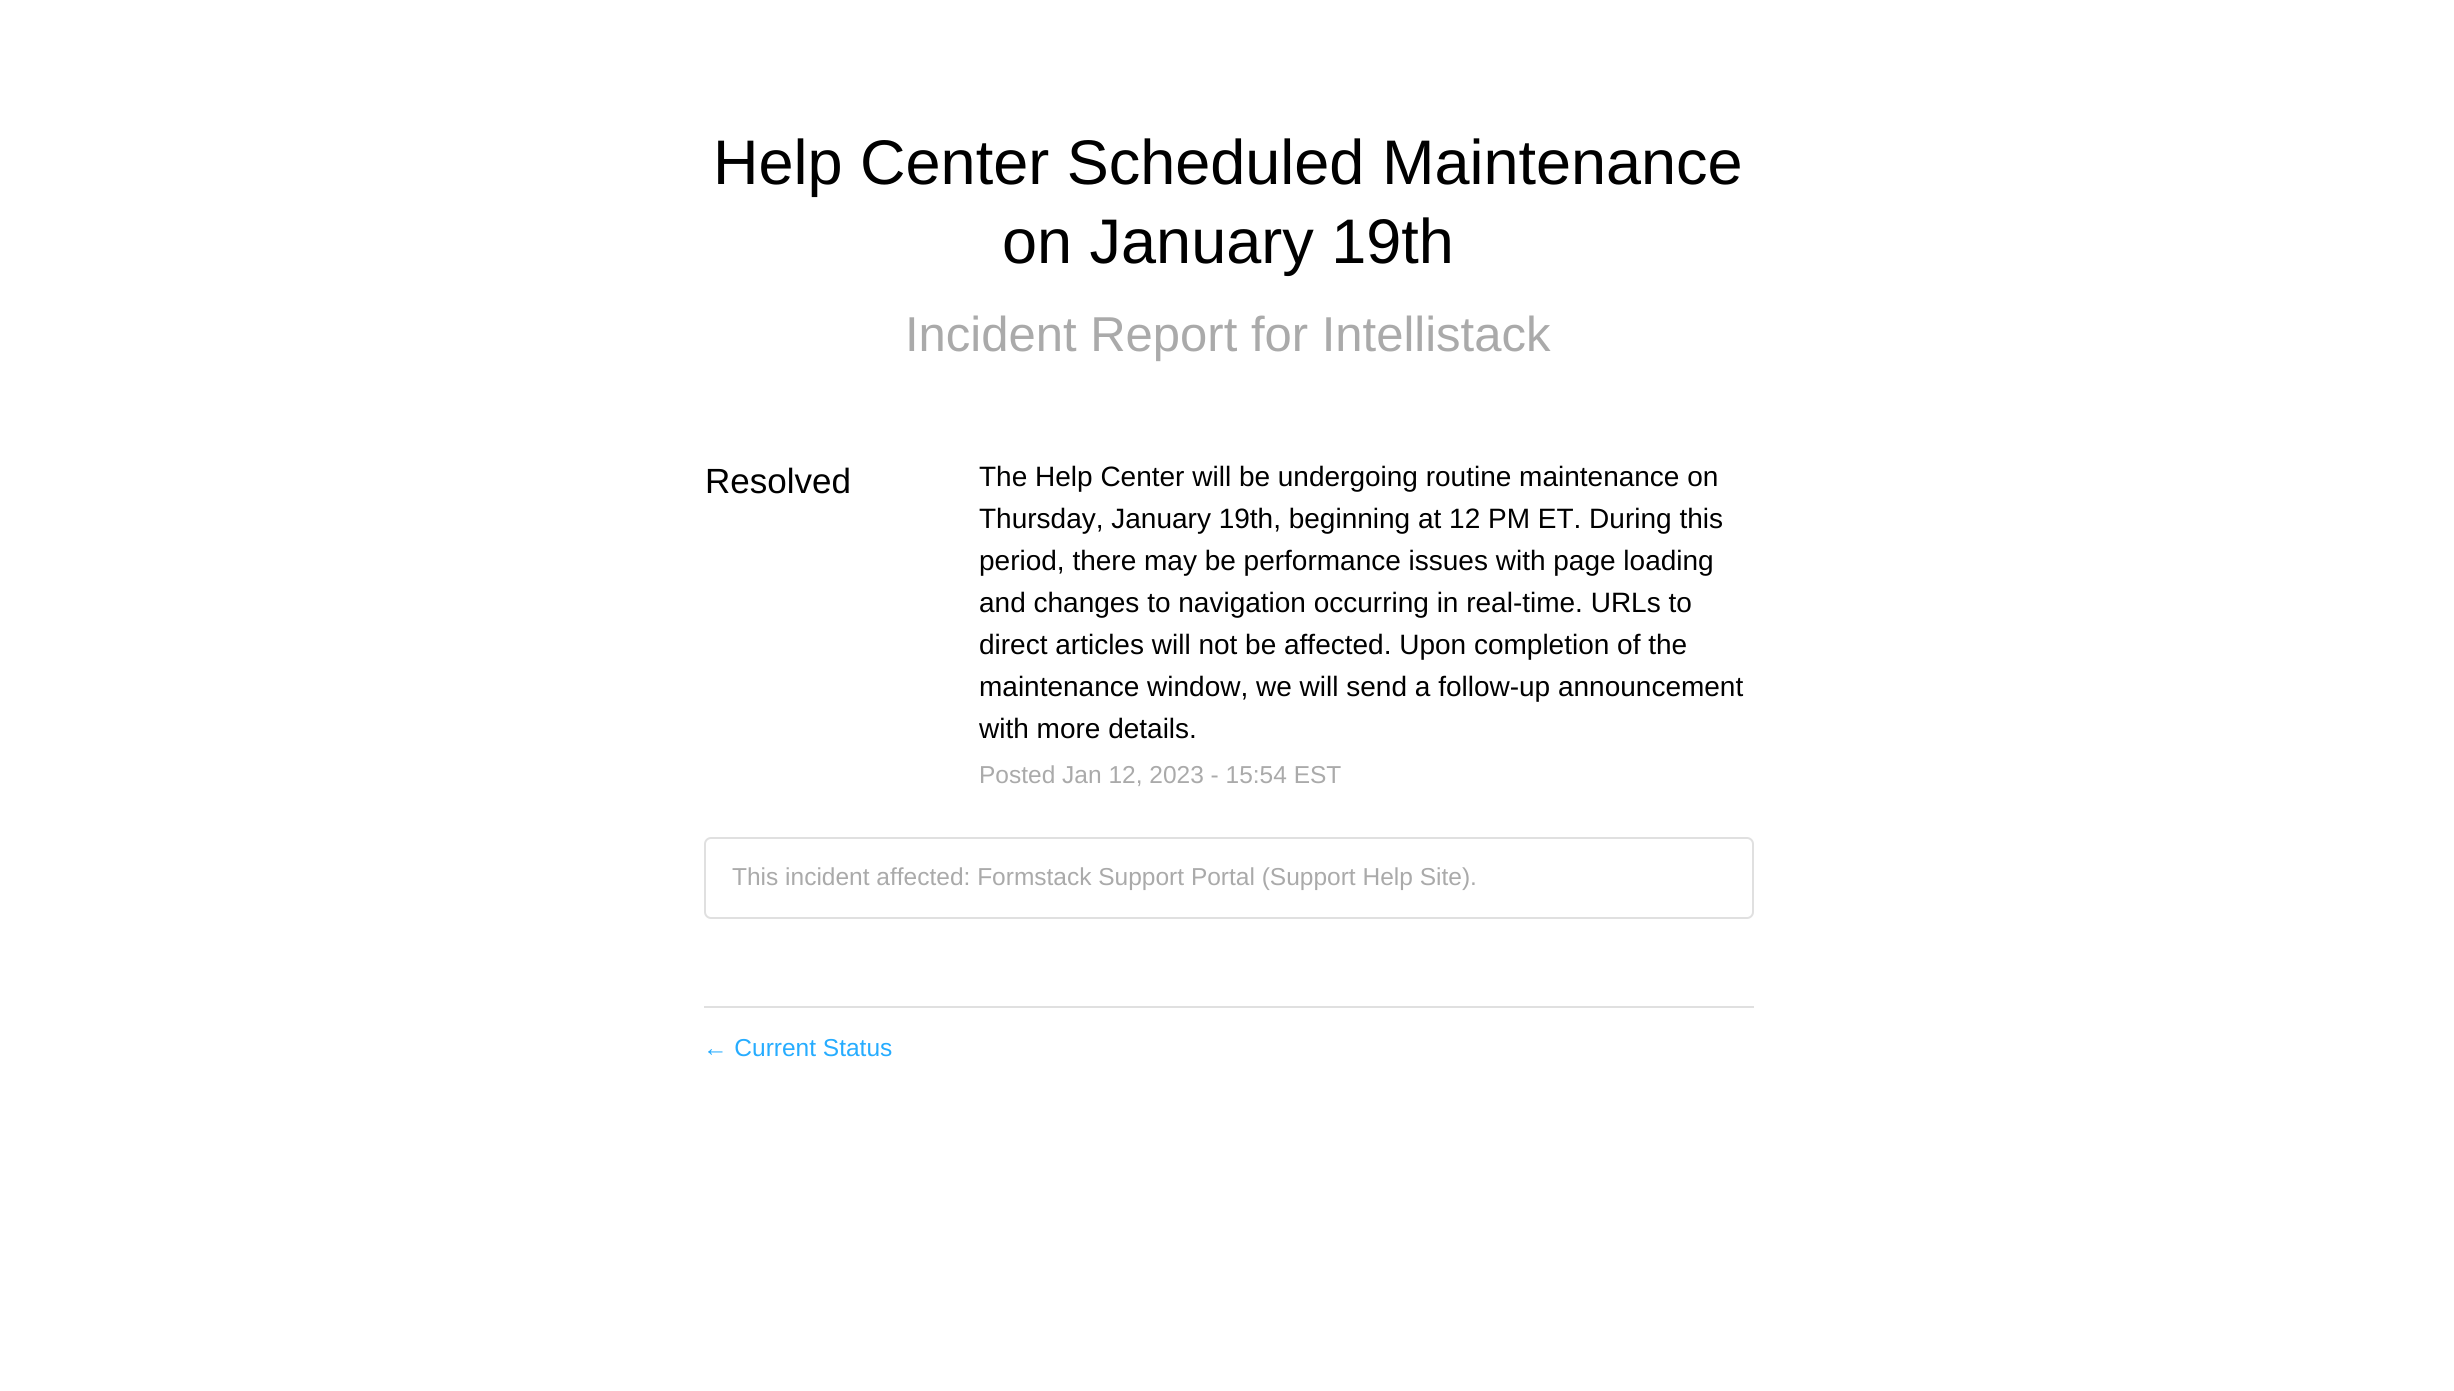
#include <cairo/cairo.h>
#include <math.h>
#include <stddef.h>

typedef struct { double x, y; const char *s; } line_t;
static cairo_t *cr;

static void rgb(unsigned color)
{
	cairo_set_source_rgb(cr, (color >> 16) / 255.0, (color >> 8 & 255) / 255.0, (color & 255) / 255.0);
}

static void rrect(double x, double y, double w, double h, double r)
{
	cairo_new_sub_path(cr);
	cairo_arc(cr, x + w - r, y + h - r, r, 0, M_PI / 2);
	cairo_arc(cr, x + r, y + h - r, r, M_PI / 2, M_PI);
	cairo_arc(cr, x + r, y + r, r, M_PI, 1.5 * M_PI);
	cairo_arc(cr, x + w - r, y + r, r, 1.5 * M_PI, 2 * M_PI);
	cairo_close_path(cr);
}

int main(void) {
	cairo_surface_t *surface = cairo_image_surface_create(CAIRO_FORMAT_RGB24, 2454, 1391);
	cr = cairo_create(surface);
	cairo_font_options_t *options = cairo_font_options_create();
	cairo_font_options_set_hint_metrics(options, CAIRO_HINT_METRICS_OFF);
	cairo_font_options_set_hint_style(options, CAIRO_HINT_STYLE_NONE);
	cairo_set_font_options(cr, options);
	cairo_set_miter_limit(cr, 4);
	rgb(0xffffff);
	cairo_paint(cr);
	rrect(705, 838, 1048, 80, 6);
	rgb(0xe0e0e0);
	cairo_stroke(cr);
	cairo_rectangle(cr, 704, 1006, 1050, 2);
	cairo_fill(cr);
	cairo_select_font_face(cr, "Liberation Sans", CAIRO_FONT_SLANT_NORMAL, CAIRO_FONT_WEIGHT_NORMAL);
	cairo_set_font_size(cr, 63);
	rgb(0x000000);
	cairo_move_to(cr, 713, 184);
	cairo_show_text(cr, "Help Center Scheduled Maintenance");
	cairo_move_to(cr, 1002, 263);
	cairo_show_text(cr, "on January 19th");
	cairo_set_font_size(cr, 49);
	rgb(0xaaaaaa);
	cairo_move_to(cr, 905, 351);
	cairo_show_text(cr, "Incident Report for Intellistack");
	cairo_set_font_size(cr, 35);
	rgb(0x000000);
	cairo_move_to(cr, 705, 493);
	cairo_show_text(cr, "Resolved");
	cairo_set_font_size(cr, 28);
	{
		static const line_t items[] = {
			{979, 486, "The Help Center will be undergoing routine maintenance on"},
			{979, 528, "Thursday, January 19th, beginning at 12 PM ET. During this"},
			{979, 570, "period, there may be performance issues with page loading"},
			{979, 612, "and changes to navigation occurring in real-time. URLs to"},
			{979, 654, "direct articles will not be affected. Upon completion of the"},
			{979, 696, "maintenance window, we will send a follow-up announcement"},
			{979, 738, "with more details."},
		};
		for (size_t i = 0; i < sizeof items / sizeof *items; i++) {
			cairo_move_to(cr, items[i].x, items[i].y);
			cairo_show_text(cr, items[i].s);
		}
	}
	cairo_set_font_size(cr, 24.5);
	rgb(0xaaaaaa);
	cairo_move_to(cr, 979, 783);
	cairo_show_text(cr, "Posted Jan 12, 2023 - 15:54 EST");
	cairo_move_to(cr, 732, 885);
	cairo_show_text(cr, "This incident affected: Formstack Support Portal (Support Help Site).");
	rgb(0x26acff);
	cairo_move_to(cr, 703, 1056);
	cairo_show_text(cr, "← Current Status");
	cairo_surface_write_to_png(surface, "page.png");
	cairo_font_options_destroy(options);
	cairo_destroy(cr);
	cairo_surface_destroy(surface);
	return 0;
}
